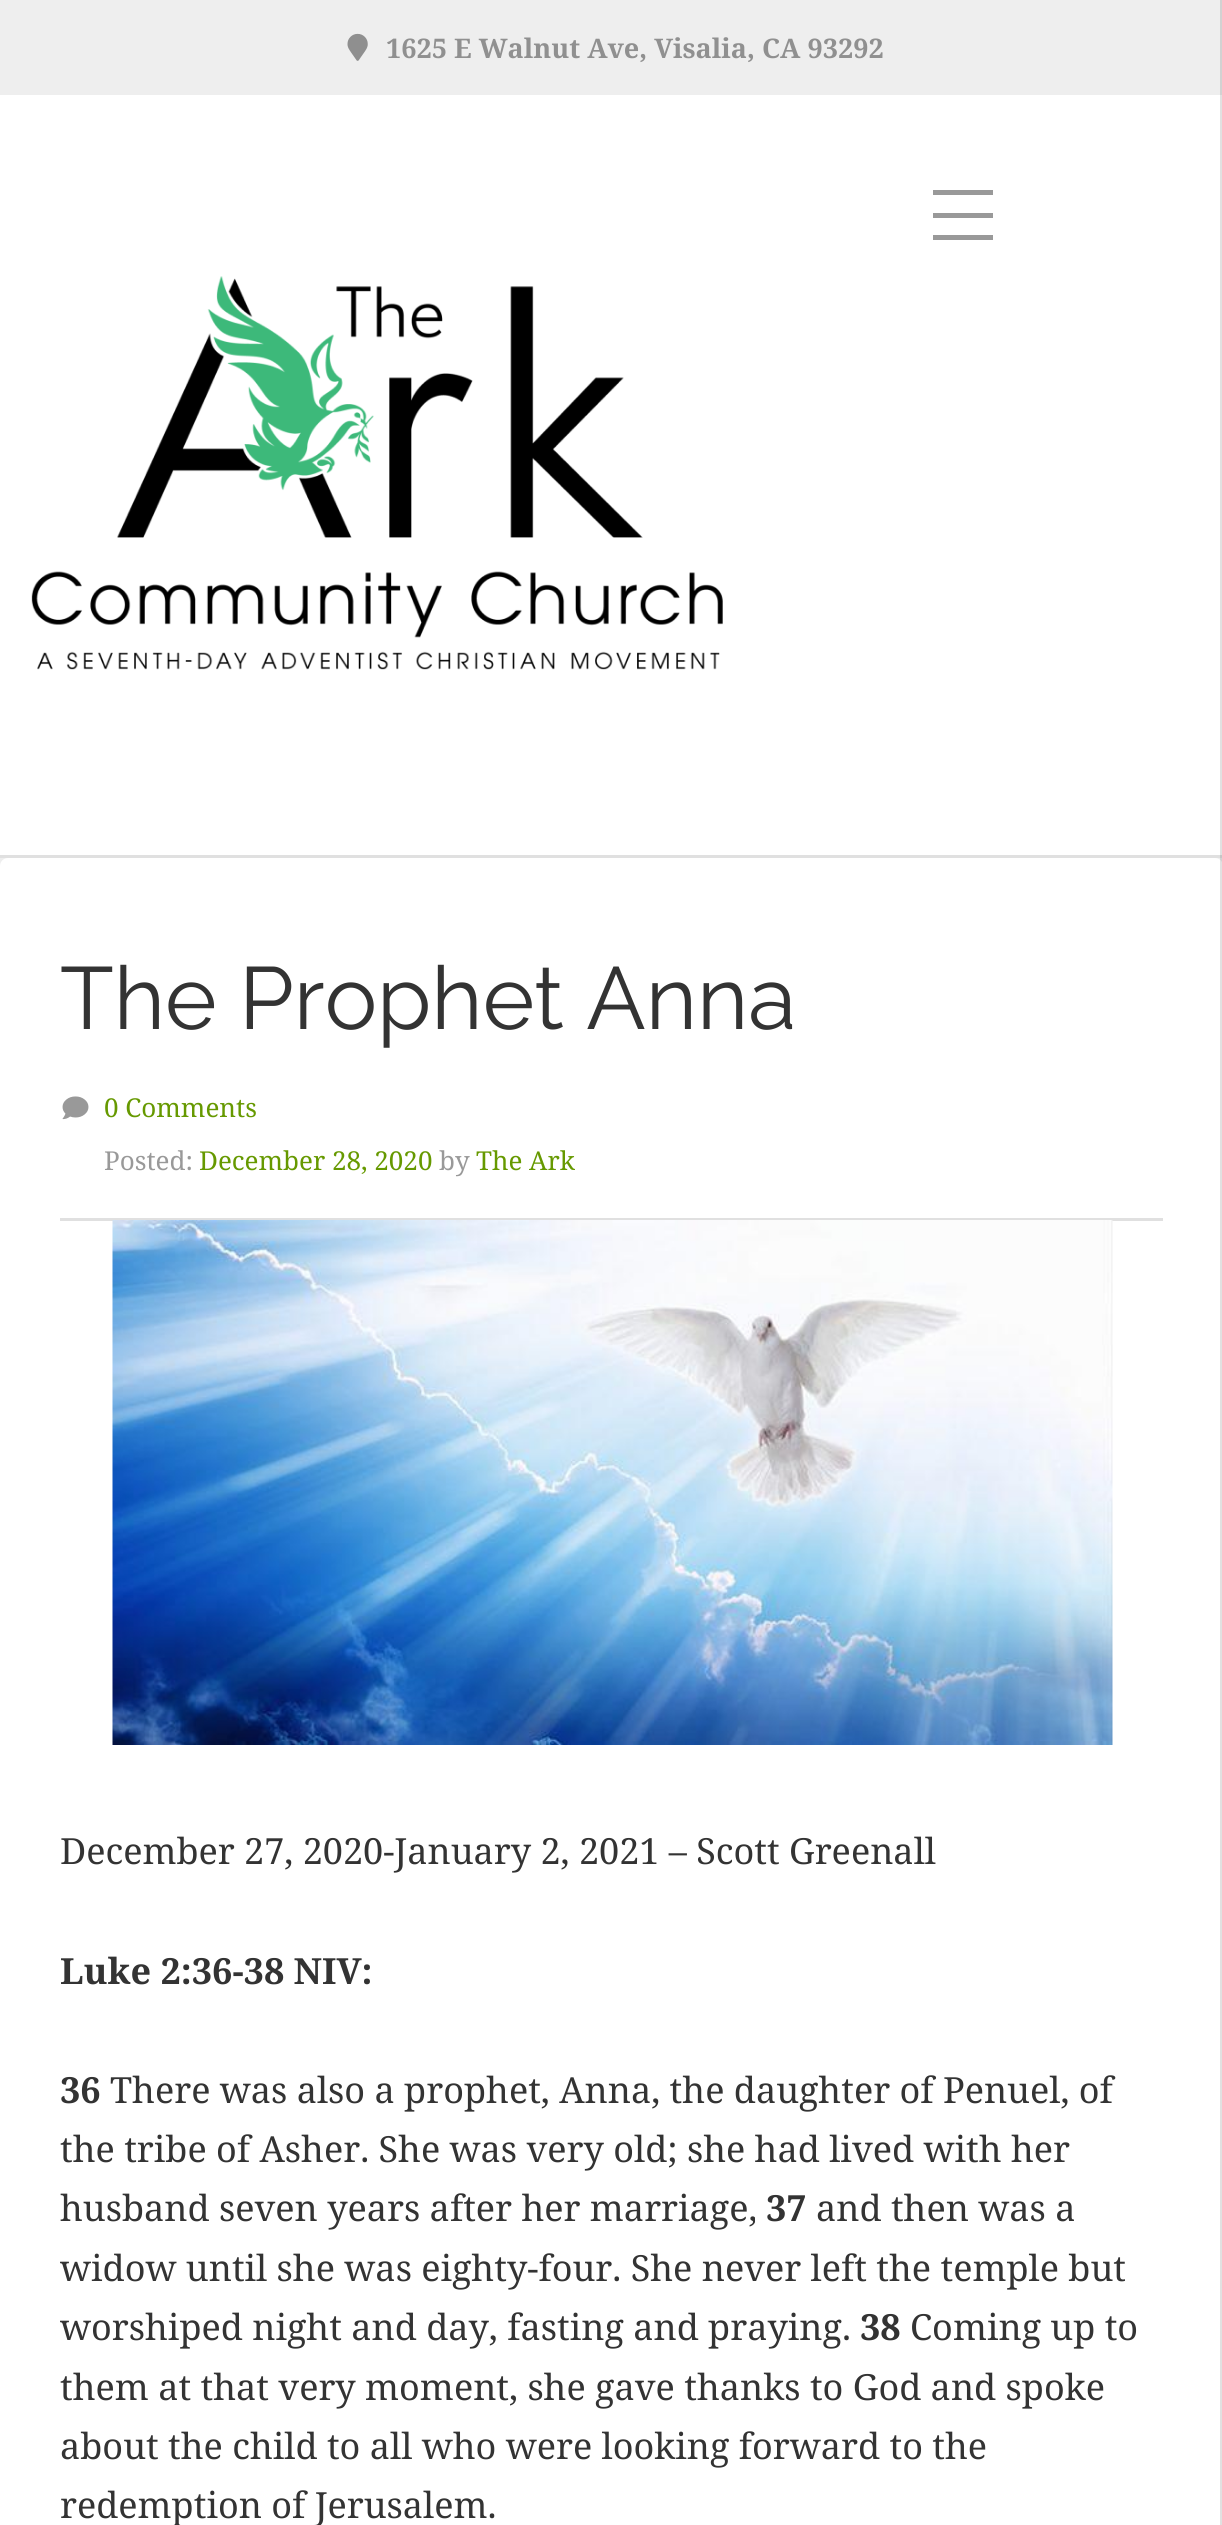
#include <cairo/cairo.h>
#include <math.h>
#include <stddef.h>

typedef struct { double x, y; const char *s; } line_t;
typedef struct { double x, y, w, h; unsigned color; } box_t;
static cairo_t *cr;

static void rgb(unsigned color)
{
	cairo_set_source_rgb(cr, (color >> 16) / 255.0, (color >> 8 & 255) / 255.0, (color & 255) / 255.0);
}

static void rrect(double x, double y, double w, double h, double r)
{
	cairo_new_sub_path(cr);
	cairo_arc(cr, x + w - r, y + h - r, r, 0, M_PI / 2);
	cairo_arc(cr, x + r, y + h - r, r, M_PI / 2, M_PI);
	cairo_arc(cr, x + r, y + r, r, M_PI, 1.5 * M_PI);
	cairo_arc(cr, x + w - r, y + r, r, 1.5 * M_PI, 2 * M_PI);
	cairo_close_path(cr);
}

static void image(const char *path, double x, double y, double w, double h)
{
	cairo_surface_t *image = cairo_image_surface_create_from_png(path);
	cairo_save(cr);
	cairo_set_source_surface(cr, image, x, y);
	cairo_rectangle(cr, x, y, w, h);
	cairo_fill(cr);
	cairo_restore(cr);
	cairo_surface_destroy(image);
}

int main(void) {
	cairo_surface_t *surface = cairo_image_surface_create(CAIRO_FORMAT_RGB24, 1222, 2525);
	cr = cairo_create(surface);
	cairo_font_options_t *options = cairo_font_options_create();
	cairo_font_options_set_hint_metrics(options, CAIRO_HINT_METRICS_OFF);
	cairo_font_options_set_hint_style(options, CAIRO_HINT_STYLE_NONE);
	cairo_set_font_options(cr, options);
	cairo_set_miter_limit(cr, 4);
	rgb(0xeeeeee);
	cairo_paint(cr);
	rgb(0xffffff);
	cairo_rectangle(cr, 0, 95, 1222, 760);
	cairo_fill(cr);
	rgb(0xe0e0e0);
	cairo_rectangle(cr, 0, 855, 1222, 3);
	cairo_fill(cr);
	image("img/1.png", 347, 33, 21, 28);
	{
		static const box_t items[] = {
			{933, 190, 60, 5, 0x999999},
			{933, 213, 60, 5, 0x999999},
			{933, 235, 60, 5, 0x999999},
		};
		for (size_t i = 0; i < sizeof items / sizeof *items; i++) {
			rgb(items[i].color);
			cairo_rectangle(cr, items[i].x, items[i].y, items[i].w, items[i].h);
			cairo_fill(cr);
		}
	}
	image("img/2.png", 31, 276, 692, 394);
	rgb(0xffffff);
	rrect(0, 858, 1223, 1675, 8);
	cairo_fill(cr);
	rgb(0xe0e0e0);
	cairo_rectangle(cr, 60, 1218, 1103, 3);
	cairo_fill(cr);
	image("img/3.png", 62, 1096, 27, 24);
	image("img/4.png", 112, 1220, 1001, 525);
	cairo_set_source_rgba(cr, 0, 0, 0, 0.12);
	cairo_rectangle(cr, 1220, 0, 2, 2525);
	cairo_fill(cr);
	cairo_select_font_face(cr, "Noto Serif", CAIRO_FONT_SLANT_NORMAL, CAIRO_FONT_WEIGHT_BOLD);
	cairo_set_font_size(cr, 27);
	rgb(0x909090);
	cairo_move_to(cr, 386, 58);
	cairo_show_text(cr, "1625 E Walnut Ave, Visalia, CA 93292");
	cairo_select_font_face(cr, "Raleway", CAIRO_FONT_SLANT_NORMAL, CAIRO_FONT_WEIGHT_NORMAL);
	cairo_set_font_size(cr, 88);
	rgb(0x333333);
	cairo_move_to(cr, 60, 1029);
	cairo_show_text(cr, "The Prophet Anna");
	cairo_select_font_face(cr, "Noto Serif", CAIRO_FONT_SLANT_NORMAL, CAIRO_FONT_WEIGHT_NORMAL);
	cairo_set_font_size(cr, 26);
	rgb(0x669900);
	cairo_move_to(cr, 104, 1117);
	cairo_show_text(cr, "0 Comments");
	rgb(0x999999);
	cairo_move_to(cr, 104, 1170);
	cairo_show_text(cr, "Posted:");
	rgb(0x669900);
	cairo_move_to(cr, 199, 1170);
	cairo_show_text(cr, "December 28, 2020");
	rgb(0x999999);
	cairo_move_to(cr, 439, 1170);
	cairo_show_text(cr, "by");
	rgb(0x669900);
	cairo_move_to(cr, 476, 1170);
	cairo_show_text(cr, "The Ark");
	cairo_set_font_size(cr, 36);
	rgb(0x333333);
	cairo_move_to(cr, 60, 1864);
	cairo_show_text(cr, "December 27, 2020-January 2, 2021 – Scott Greenall");
	cairo_select_font_face(cr, "Noto Serif", CAIRO_FONT_SLANT_NORMAL, CAIRO_FONT_WEIGHT_BOLD);
	cairo_move_to(cr, 60, 1984);
	cairo_show_text(cr, "Luke 2:36-38 NIV:");
	cairo_move_to(cr, 60, 2103);
	cairo_show_text(cr, "36");
	cairo_select_font_face(cr, "Noto Serif", CAIRO_FONT_SLANT_NORMAL, CAIRO_FONT_WEIGHT_NORMAL);
	{
		static const line_t items[] = {
			{110, 2103, "There was also a prophet, Anna, the daughter of Penuel, of"},
			{60, 2162, "the tribe of Asher. She was very old; she had lived with her"},
			{60, 2221, "husband seven years after her marriage,"},
		};
		for (size_t i = 0; i < sizeof items / sizeof *items; i++) {
			cairo_move_to(cr, items[i].x, items[i].y);
			cairo_show_text(cr, items[i].s);
		}
	}
	cairo_select_font_face(cr, "Noto Serif", CAIRO_FONT_SLANT_NORMAL, CAIRO_FONT_WEIGHT_BOLD);
	cairo_move_to(cr, 766, 2221);
	cairo_show_text(cr, "37");
	cairo_select_font_face(cr, "Noto Serif", CAIRO_FONT_SLANT_NORMAL, CAIRO_FONT_WEIGHT_NORMAL);
	{
		static const line_t items[] = {
			{816, 2221, "and then was a"},
			{60, 2281, "widow until she was eighty-four. She never left the temple but"},
			{60, 2340, "worshiped night and day, fasting and praying."},
		};
		for (size_t i = 0; i < sizeof items / sizeof *items; i++) {
			cairo_move_to(cr, items[i].x, items[i].y);
			cairo_show_text(cr, items[i].s);
		}
	}
	cairo_select_font_face(cr, "Noto Serif", CAIRO_FONT_SLANT_NORMAL, CAIRO_FONT_WEIGHT_BOLD);
	cairo_move_to(cr, 860, 2340);
	cairo_show_text(cr, "38");
	cairo_select_font_face(cr, "Noto Serif", CAIRO_FONT_SLANT_NORMAL, CAIRO_FONT_WEIGHT_NORMAL);
	{
		static const line_t items[] = {
			{910, 2340, "Coming up to"},
			{60, 2400, "them at that very moment, she gave thanks to God and spoke"},
			{60, 2459, "about the child to all who were looking forward to the"},
			{60, 2518, "redemption of Jerusalem."},
		};
		for (size_t i = 0; i < sizeof items / sizeof *items; i++) {
			cairo_move_to(cr, items[i].x, items[i].y);
			cairo_show_text(cr, items[i].s);
		}
	}
	cairo_surface_write_to_png(surface, "page.png");
	cairo_font_options_destroy(options);
	cairo_destroy(cr);
	cairo_surface_destroy(surface);
	return 0;
}
